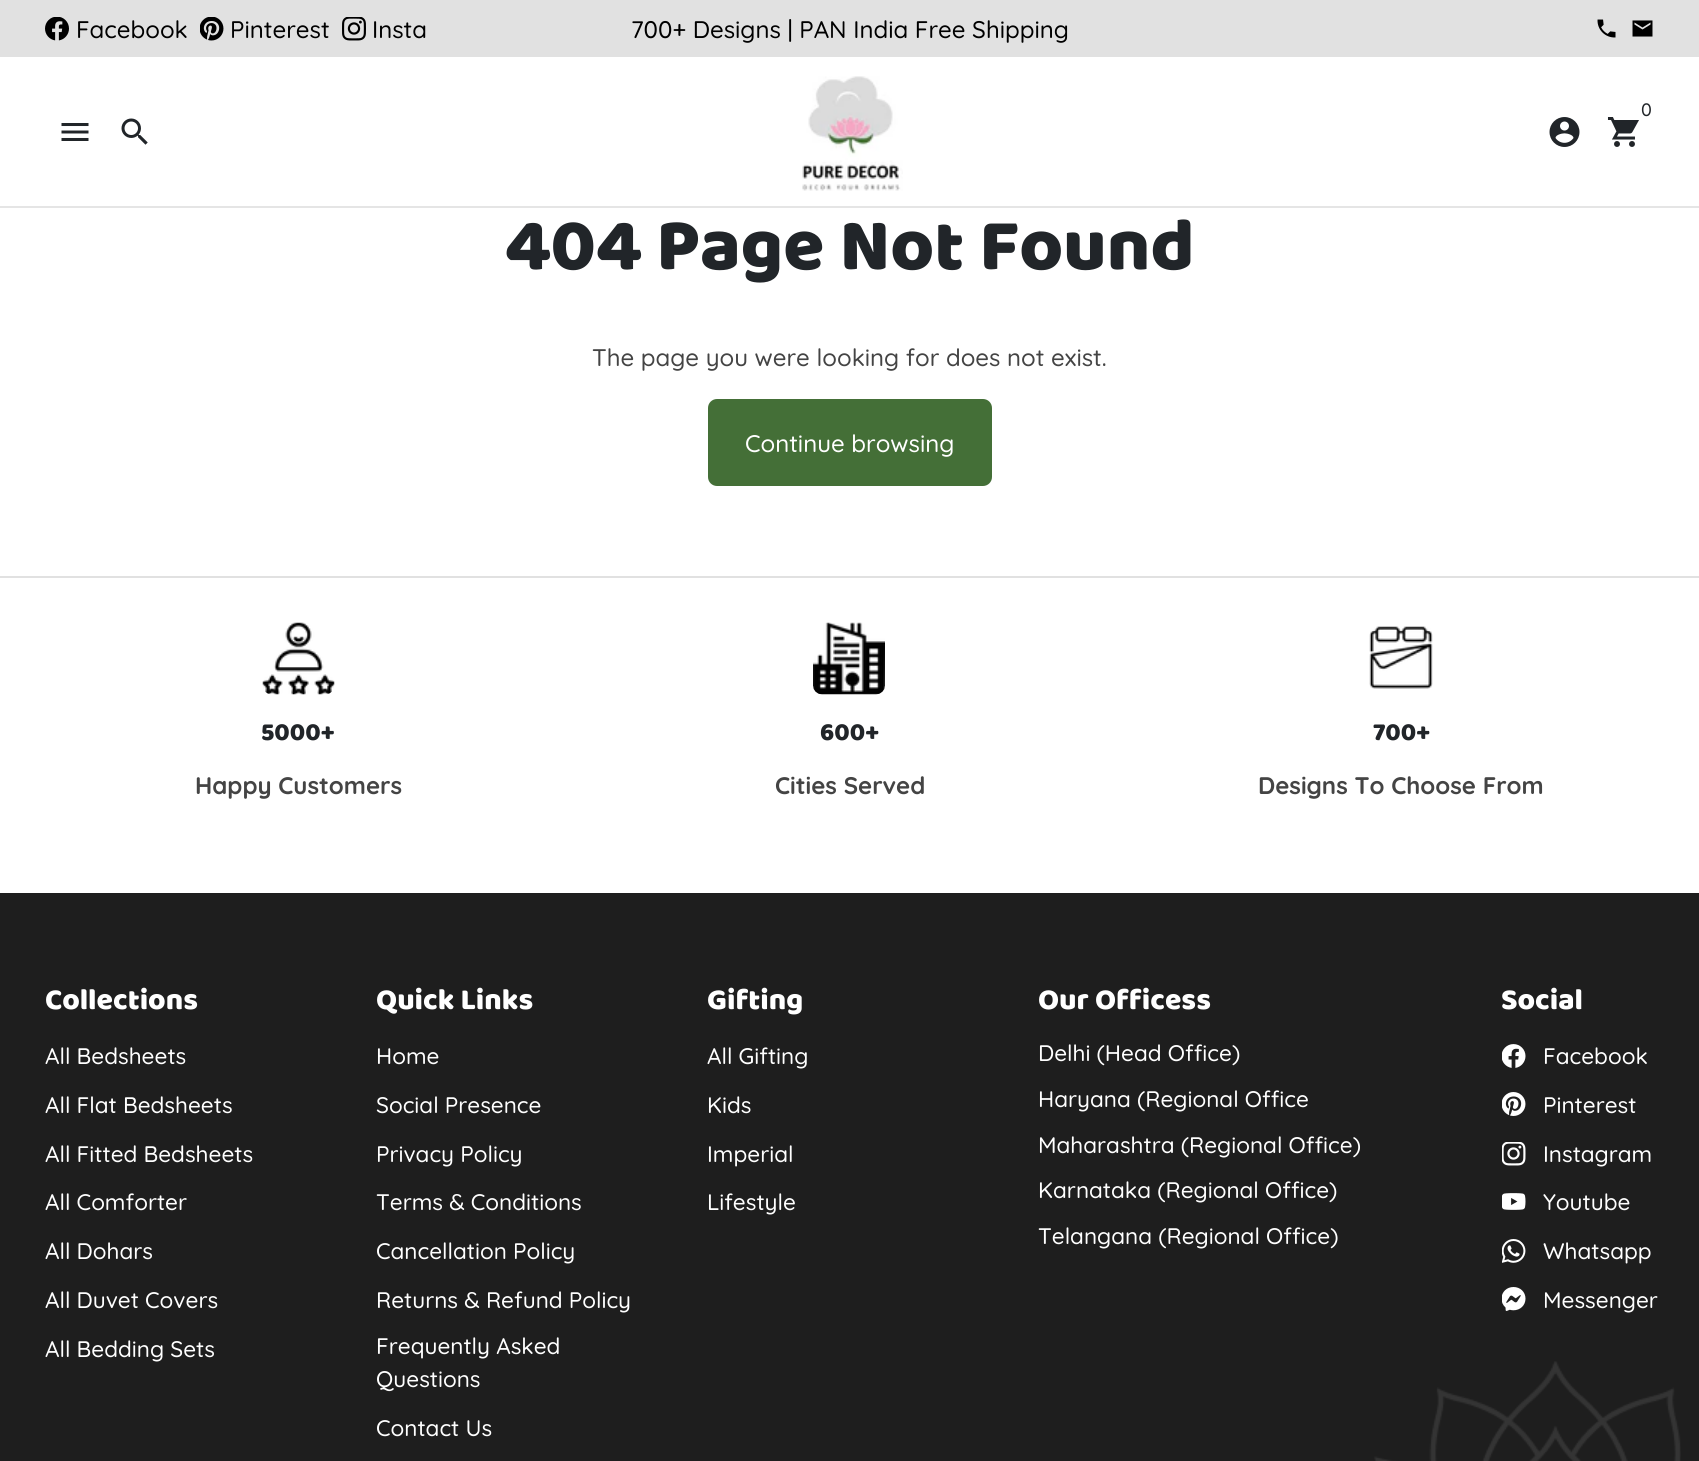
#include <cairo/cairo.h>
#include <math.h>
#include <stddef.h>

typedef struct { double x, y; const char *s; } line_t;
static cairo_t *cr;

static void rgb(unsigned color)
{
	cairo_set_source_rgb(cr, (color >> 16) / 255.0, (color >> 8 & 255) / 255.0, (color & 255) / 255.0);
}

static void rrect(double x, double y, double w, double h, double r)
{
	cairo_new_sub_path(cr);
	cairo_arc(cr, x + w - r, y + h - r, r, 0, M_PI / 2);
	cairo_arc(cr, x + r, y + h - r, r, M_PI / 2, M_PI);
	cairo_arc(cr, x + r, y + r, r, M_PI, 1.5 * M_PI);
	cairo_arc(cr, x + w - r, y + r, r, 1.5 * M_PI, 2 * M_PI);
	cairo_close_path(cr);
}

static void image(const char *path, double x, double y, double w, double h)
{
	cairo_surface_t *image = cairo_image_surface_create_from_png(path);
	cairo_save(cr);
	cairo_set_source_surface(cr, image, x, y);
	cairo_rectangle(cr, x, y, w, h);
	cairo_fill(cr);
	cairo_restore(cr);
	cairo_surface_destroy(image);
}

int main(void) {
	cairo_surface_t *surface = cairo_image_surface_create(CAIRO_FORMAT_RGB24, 1699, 1461);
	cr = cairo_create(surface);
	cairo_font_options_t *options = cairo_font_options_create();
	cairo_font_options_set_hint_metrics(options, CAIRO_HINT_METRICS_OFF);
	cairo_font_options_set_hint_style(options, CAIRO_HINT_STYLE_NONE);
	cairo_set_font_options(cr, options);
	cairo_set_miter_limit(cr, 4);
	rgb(0xffffff);
	cairo_paint(cr);
	rgb(0xe1e1e1);
	cairo_rectangle(cr, 0, 0, 1699, 57);
	cairo_fill(cr);
	image("img/1.png", 45, 17, 24, 24);
	image("img/2.png", 200, 17, 24, 24);
	image("img/3.png", 342, 17, 24, 24);
	image("img/4.png", 1597, 19, 19, 19);
	image("img/5.png", 1632, 20, 21, 17);
	rgb(0xe5e5e5);
	cairo_rectangle(cr, 0, 206, 1699, 2);
	cairo_fill(cr);
	image("img/6.png", 802, 76, 101, 115);
	image("img/7.png", 1607, 117, 32, 30);
	image("img/8.png", 1549, 117, 31, 30);
	image("img/9.png", 61, 123, 28, 18);
	image("img/10.png", 121, 118, 27, 27);
	rgb(0x446f37);
	rrect(709, 400, 282, 85, 8);
	cairo_fill_preserve(cr);
	cairo_stroke(cr);
	rgb(0xe1e1e1);
	cairo_rectangle(cr, 0, 576, 1699, 2);
	cairo_fill(cr);
	image("img/11.png", 262, 622, 73, 73);
	image("img/12.png", 813, 622, 72, 73);
	image("img/13.png", 1369, 626, 64, 63);
	rgb(0x1e1e1e);
	cairo_rectangle(cr, 0, 893, 1699, 568);
	cairo_fill(cr);
	image("img/14.png", 1502, 1044, 24, 24);
	image("img/15.png", 1502, 1092, 24, 24);
	image("img/16.png", 1502, 1142, 24, 24);
	image("img/17.png", 1502, 1193, 24, 17);
	image("img/18.png", 1502, 1239, 24, 24);
	image("img/19.png", 1502, 1287, 24, 24);
	image("img/20.png", 1374, 1361, 307, 100);
	cairo_select_font_face(cr, "Quicksand Medium", CAIRO_FONT_SLANT_NORMAL, CAIRO_FONT_WEIGHT_NORMAL);
	cairo_set_font_size(cr, 24);
	rgb(0x000000);
	{
		static const line_t items[] = {
			{76, 38, "Facebook"},
			{230, 38, "Pinterest"},
			{372, 38, "Insta"},
			{631, 38, "700+ Designs | PAN India Free Shipping"},
		};
		for (size_t i = 0; i < sizeof items / sizeof *items; i++) {
			cairo_move_to(cr, items[i].x, items[i].y);
			cairo_show_text(cr, items[i].s);
		}
	}
	cairo_set_font_size(cr, 18);
	rgb(0x212529);
	cairo_move_to(cr, 1641, 116);
	cairo_show_text(cr, "0");
	cairo_select_font_face(cr, "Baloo", CAIRO_FONT_SLANT_NORMAL, CAIRO_FONT_WEIGHT_NORMAL);
	cairo_set_font_size(cr, 75);
	cairo_move_to(cr, 505, 269);
	cairo_show_text(cr, "404 Page Not Found");
	cairo_select_font_face(cr, "Quicksand Medium", CAIRO_FONT_SLANT_NORMAL, CAIRO_FONT_WEIGHT_NORMAL);
	cairo_set_font_size(cr, 24);
	rgb(0x444444);
	cairo_move_to(cr, 592, 366);
	cairo_show_text(cr, "The page you were looking for does not exist.");
	rgb(0xffffff);
	cairo_move_to(cr, 745, 452);
	cairo_show_text(cr, "Continue browsing");
	cairo_select_font_face(cr, "Baloo", CAIRO_FONT_SLANT_NORMAL, CAIRO_FONT_WEIGHT_NORMAL);
	cairo_set_font_size(cr, 25.5);
	rgb(0x212529);
	cairo_move_to(cr, 261, 740);
	cairo_show_text(cr, "5000+");
	cairo_select_font_face(cr, "Quicksand", CAIRO_FONT_SLANT_NORMAL, CAIRO_FONT_WEIGHT_BOLD);
	cairo_set_font_size(cr, 24);
	rgb(0x444444);
	cairo_move_to(cr, 195, 794);
	cairo_show_text(cr, "Happy Customers");
	cairo_select_font_face(cr, "Baloo", CAIRO_FONT_SLANT_NORMAL, CAIRO_FONT_WEIGHT_NORMAL);
	cairo_set_font_size(cr, 25.5);
	rgb(0x212529);
	cairo_move_to(cr, 820, 740);
	cairo_show_text(cr, "600+");
	cairo_select_font_face(cr, "Quicksand", CAIRO_FONT_SLANT_NORMAL, CAIRO_FONT_WEIGHT_BOLD);
	cairo_set_font_size(cr, 24);
	rgb(0x444444);
	cairo_move_to(cr, 775, 794);
	cairo_show_text(cr, "Cities Served");
	cairo_select_font_face(cr, "Baloo", CAIRO_FONT_SLANT_NORMAL, CAIRO_FONT_WEIGHT_NORMAL);
	cairo_set_font_size(cr, 25.5);
	rgb(0x212529);
	cairo_move_to(cr, 1373, 740);
	cairo_show_text(cr, "700+");
	cairo_select_font_face(cr, "Quicksand", CAIRO_FONT_SLANT_NORMAL, CAIRO_FONT_WEIGHT_BOLD);
	cairo_set_font_size(cr, 24);
	rgb(0x444444);
	cairo_move_to(cr, 1258, 794);
	cairo_show_text(cr, "Designs To Choose From");
	cairo_select_font_face(cr, "Baloo", CAIRO_FONT_SLANT_NORMAL, CAIRO_FONT_WEIGHT_NORMAL);
	cairo_set_font_size(cr, 30);
	rgb(0xffffff);
	cairo_move_to(cr, 45, 1009);
	cairo_show_text(cr, "Collections");
	cairo_select_font_face(cr, "Quicksand Medium", CAIRO_FONT_SLANT_NORMAL, CAIRO_FONT_WEIGHT_NORMAL);
	cairo_set_font_size(cr, 22.5);
	{
		static const line_t items[] = {
			{45, 1064, "All Bedsheets"},
			{45, 1113, "All Flat Bedsheets"},
			{45, 1162, "All Fitted Bedsheets"},
			{45, 1210, "All Comforter"},
			{45, 1259, "All Dohars"},
			{45, 1308, "All Duvet Covers"},
			{45, 1357, "All Bedding Sets"},
		};
		for (size_t i = 0; i < sizeof items / sizeof *items; i++) {
			cairo_move_to(cr, items[i].x, items[i].y);
			cairo_show_text(cr, items[i].s);
		}
	}
	cairo_select_font_face(cr, "Baloo", CAIRO_FONT_SLANT_NORMAL, CAIRO_FONT_WEIGHT_NORMAL);
	cairo_set_font_size(cr, 30);
	cairo_move_to(cr, 376, 1009);
	cairo_show_text(cr, "Quick Links");
	cairo_select_font_face(cr, "Quicksand Medium", CAIRO_FONT_SLANT_NORMAL, CAIRO_FONT_WEIGHT_NORMAL);
	cairo_set_font_size(cr, 22.5);
	{
		static const line_t items[] = {
			{376, 1064, "Home"},
			{376, 1113, "Social Presence"},
			{376, 1162, "Privacy Policy"},
			{376, 1210, "Terms & Conditions"},
			{376, 1259, "Cancellation Policy"},
			{376, 1308, "Returns & Refund Policy"},
			{376, 1354, "Frequently Asked"},
			{376, 1387, "Questions"},
			{376, 1436, "Contact Us"},
		};
		for (size_t i = 0; i < sizeof items / sizeof *items; i++) {
			cairo_move_to(cr, items[i].x, items[i].y);
			cairo_show_text(cr, items[i].s);
		}
	}
	cairo_select_font_face(cr, "Baloo", CAIRO_FONT_SLANT_NORMAL, CAIRO_FONT_WEIGHT_NORMAL);
	cairo_set_font_size(cr, 30);
	cairo_move_to(cr, 707, 1009);
	cairo_show_text(cr, "Gifting");
	cairo_select_font_face(cr, "Quicksand Medium", CAIRO_FONT_SLANT_NORMAL, CAIRO_FONT_WEIGHT_NORMAL);
	cairo_set_font_size(cr, 22.5);
	{
		static const line_t items[] = {
			{707, 1064, "All Gifting"},
			{707, 1113, "Kids"},
			{707, 1162, "Imperial"},
			{707, 1210, "Lifestyle"},
		};
		for (size_t i = 0; i < sizeof items / sizeof *items; i++) {
			cairo_move_to(cr, items[i].x, items[i].y);
			cairo_show_text(cr, items[i].s);
		}
	}
	cairo_select_font_face(cr, "Baloo", CAIRO_FONT_SLANT_NORMAL, CAIRO_FONT_WEIGHT_NORMAL);
	cairo_set_font_size(cr, 30);
	cairo_move_to(cr, 1038, 1009);
	cairo_show_text(cr, "Our Officess");
	cairo_select_font_face(cr, "Quicksand Medium", CAIRO_FONT_SLANT_NORMAL, CAIRO_FONT_WEIGHT_NORMAL);
	cairo_set_font_size(cr, 22.5);
	{
		static const line_t items[] = {
			{1038, 1061, "Delhi (Head Office)"},
			{1038, 1107, "Haryana (Regional Office"},
			{1038, 1153, "Maharashtra (Regional Office)"},
			{1038, 1198, "Karnataka (Regional Office)"},
			{1038, 1244, "Telangana (Regional Office)"},
		};
		for (size_t i = 0; i < sizeof items / sizeof *items; i++) {
			cairo_move_to(cr, items[i].x, items[i].y);
			cairo_show_text(cr, items[i].s);
		}
	}
	cairo_select_font_face(cr, "Baloo", CAIRO_FONT_SLANT_NORMAL, CAIRO_FONT_WEIGHT_NORMAL);
	cairo_set_font_size(cr, 30);
	cairo_move_to(cr, 1501, 1009);
	cairo_show_text(cr, "Social");
	cairo_select_font_face(cr, "Quicksand Medium", CAIRO_FONT_SLANT_NORMAL, CAIRO_FONT_WEIGHT_NORMAL);
	cairo_set_font_size(cr, 22.5);
	{
		static const line_t items[] = {
			{1543, 1064, "Facebook"},
			{1543, 1113, "Pinterest"},
			{1543, 1162, "Instagram"},
			{1543, 1210, "Youtube"},
			{1543, 1259, "Whatsapp"},
			{1543, 1308, "Messenger"},
		};
		for (size_t i = 0; i < sizeof items / sizeof *items; i++) {
			cairo_move_to(cr, items[i].x, items[i].y);
			cairo_show_text(cr, items[i].s);
		}
	}
	cairo_surface_write_to_png(surface, "page.png");
	cairo_font_options_destroy(options);
	cairo_destroy(cr);
	cairo_surface_destroy(surface);
	return 0;
}
